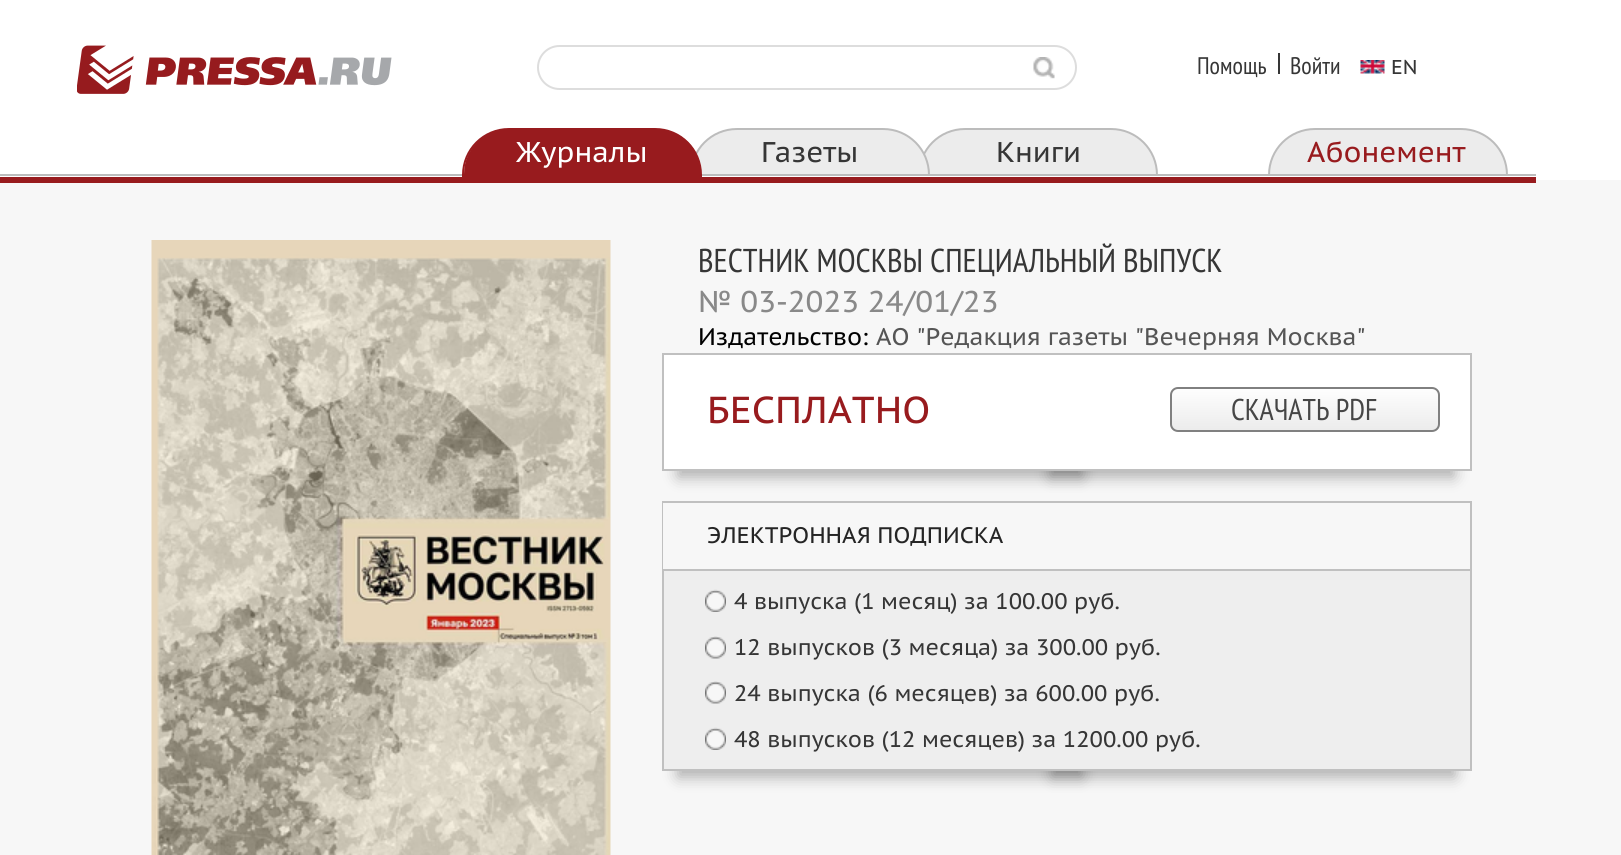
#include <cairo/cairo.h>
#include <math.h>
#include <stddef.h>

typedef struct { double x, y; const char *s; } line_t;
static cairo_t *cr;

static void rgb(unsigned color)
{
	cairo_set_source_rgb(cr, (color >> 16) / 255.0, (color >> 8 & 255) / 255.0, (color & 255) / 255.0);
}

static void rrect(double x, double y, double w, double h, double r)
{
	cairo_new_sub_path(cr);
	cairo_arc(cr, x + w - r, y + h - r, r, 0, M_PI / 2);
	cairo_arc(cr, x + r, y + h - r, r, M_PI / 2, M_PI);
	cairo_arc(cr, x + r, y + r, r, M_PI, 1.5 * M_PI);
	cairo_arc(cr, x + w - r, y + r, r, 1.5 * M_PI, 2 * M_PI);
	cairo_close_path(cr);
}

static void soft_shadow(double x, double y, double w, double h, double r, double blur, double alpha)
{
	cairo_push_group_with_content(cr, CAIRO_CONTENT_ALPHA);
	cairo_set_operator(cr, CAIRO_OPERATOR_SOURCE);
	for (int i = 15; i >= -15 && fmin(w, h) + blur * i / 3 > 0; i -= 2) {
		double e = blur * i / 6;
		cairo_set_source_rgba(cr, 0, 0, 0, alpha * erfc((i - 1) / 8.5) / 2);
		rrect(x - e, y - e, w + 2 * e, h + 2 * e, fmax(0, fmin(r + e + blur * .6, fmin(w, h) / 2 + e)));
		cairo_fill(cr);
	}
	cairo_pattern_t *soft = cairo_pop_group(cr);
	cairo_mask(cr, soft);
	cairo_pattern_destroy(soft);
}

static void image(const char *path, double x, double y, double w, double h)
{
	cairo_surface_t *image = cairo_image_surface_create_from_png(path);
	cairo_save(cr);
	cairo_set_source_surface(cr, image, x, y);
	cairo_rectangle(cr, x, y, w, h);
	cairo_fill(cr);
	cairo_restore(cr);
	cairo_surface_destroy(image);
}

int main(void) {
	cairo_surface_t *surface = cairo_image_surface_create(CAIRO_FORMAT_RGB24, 1621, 855);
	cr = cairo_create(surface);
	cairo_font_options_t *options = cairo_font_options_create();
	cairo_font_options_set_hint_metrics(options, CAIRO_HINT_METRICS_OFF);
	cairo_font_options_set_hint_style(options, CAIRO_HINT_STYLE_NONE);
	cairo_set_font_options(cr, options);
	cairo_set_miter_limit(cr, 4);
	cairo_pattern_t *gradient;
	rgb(0xffffff);
	cairo_paint(cr);
	rgb(0xf7f7f7);
	cairo_rectangle(cr, 0, 180, 1621, 675);
	cairo_fill(cr);
	image("img/1.png", 77, 45, 315, 49);
	rrect(538, 46, 538, 43, 21.5);
	rgb(0xdddddd);
	cairo_stroke(cr);
	image("img/2.png", 1033, 57, 22, 22);
	rgb(0x363636);
	cairo_rectangle(cr, 1278, 53, 2, 21);
	cairo_fill(cr);
	image("img/3.png", 1360, 60, 25, 14);
	rgb(0xbcbcbc);
	cairo_rectangle(cr, 0, 174, 1536, 2);
	cairo_fill(cr);
	rgb(0xececec);
	cairo_new_path(cr);
	cairo_move_to(cr, 965, 129);
	cairo_line_to(cr, 1111, 129);
	cairo_curve_to(cr, 1136.5, 129, 1157, 149.5, 1157, 175);
	cairo_line_to(cr, 919, 175);
	cairo_curve_to(cr, 919, 149.5, 939.5, 129, 965, 129);
	cairo_close_path(cr);
	cairo_fill_preserve(cr);
	rgb(0xbcbcbc);
	cairo_stroke(cr);
	rgb(0xececec);
	cairo_new_path(cr);
	cairo_move_to(cr, 737, 129);
	cairo_line_to(cr, 883, 129);
	cairo_curve_to(cr, 908.5, 129, 929, 149.5, 929, 175);
	cairo_line_to(cr, 691, 175);
	cairo_curve_to(cr, 691, 149.5, 711.5, 129, 737, 129);
	cairo_close_path(cr);
	cairo_fill_preserve(cr);
	rgb(0xbcbcbc);
	cairo_stroke(cr);
	rgb(0x981b1e);
	cairo_new_path(cr);
	cairo_move_to(cr, 509, 129);
	cairo_line_to(cr, 656, 129);
	cairo_curve_to(cr, 681, 129, 701, 149, 701, 174);
	cairo_line_to(cr, 464, 174);
	cairo_curve_to(cr, 464, 149, 484, 129, 509, 129);
	cairo_close_path(cr);
	cairo_fill(cr);
	cairo_new_path(cr);
	cairo_move_to(cr, 509, 129);
	cairo_line_to(cr, 655, 129);
	cairo_curve_to(cr, 680.5, 129, 701, 149.5, 701, 175);
	cairo_line_to(cr, 701, 176);
	cairo_line_to(cr, 463, 176);
	cairo_line_to(cr, 463, 175);
	cairo_curve_to(cr, 463, 149.5, 483.5, 129, 509, 129);
	cairo_close_path(cr);
	cairo_stroke(cr);
	cairo_rectangle(cr, 462, 174, 240, 1);
	cairo_fill(cr);
	rgb(0xececec);
	cairo_new_path(cr);
	cairo_move_to(cr, 1315, 129);
	cairo_line_to(cr, 1461, 129);
	cairo_curve_to(cr, 1486.5, 129, 1507, 149.5, 1507, 175);
	cairo_line_to(cr, 1269, 175);
	cairo_curve_to(cr, 1269, 149.5, 1289.5, 129, 1315, 129);
	cairo_close_path(cr);
	cairo_fill_preserve(cr);
	rgb(0xbcbcbc);
	cairo_stroke(cr);
	image("img/4.png", 151, 240, 460, 615);
	rgb(0x000000);
	soft_shadow(678, 455, 404, 22, 0, 7.5, 0.3);
	soft_shadow(1050, 455, 404, 22, 0, 7.5, 0.3);
	rgb(0xffffff);
	cairo_rectangle(cr, 663, 354, 808, 116);
	cairo_fill_preserve(cr);
	rgb(0xc0c0c0);
	cairo_stroke(cr);
	cairo_save(cr);
	rrect(1170, 387, 270, 45, 8);
	cairo_clip(cr);
	gradient = cairo_pattern_create_linear(1305, 389, 1305, 431);
	cairo_pattern_add_color_stop_rgba(gradient, 0, 0.996, 0.996, 0.996, 1);
	cairo_pattern_add_color_stop_rgba(gradient, 1, 0.922, 0.922, 0.922, 1);
	cairo_set_source(cr, gradient);
	cairo_pattern_destroy(gradient);
	cairo_rectangle(cr, 1170, 389, 270, 42);
	cairo_fill(cr);
	cairo_restore(cr);
	rrect(1171, 388, 268, 43, 7);
	rgb(0x808080);
	cairo_stroke(cr);
	rgb(0x000000);
	soft_shadow(678, 725, 404, 52, 0, 7.5, 0.3);
	soft_shadow(1052, 725, 403, 52, 0, 7.5, 0.3);
	rgb(0xeeeeee);
	cairo_rectangle(cr, 664, 571, 806, 198);
	cairo_fill(cr);
	cairo_rectangle(cr, 663, 502, 808, 268);
	rgb(0xc0c0c0);
	cairo_stroke(cr);
	rgb(0xf7f7f7);
	cairo_rectangle(cr, 663, 503, 1, 66);
	cairo_fill(cr);
	rgb(0xc0c0c0);
	cairo_rectangle(cr, 663, 569, 807, 2);
	cairo_fill(cr);
	image("img/5.png", 705, 589, 21, 23);
	image("img/6.png", 705, 636, 21, 23);
	image("img/6.png", 705, 681, 21, 23);
	image("img/5.png", 705, 727, 21, 23);
	rgb(0x981b1e);
	cairo_rectangle(cr, 0, 177, 1536, 6);
	cairo_fill(cr);
	cairo_select_font_face(cr, "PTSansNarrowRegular", CAIRO_FONT_SLANT_NORMAL, CAIRO_FONT_WEIGHT_NORMAL);
	cairo_set_font_size(cr, 24);
	rgb(0x363636);
	cairo_move_to(cr, 1197, 74);
	cairo_show_text(cr, "Помощь");
	cairo_move_to(cr, 1290, 74);
	cairo_show_text(cr, "Войти");
	cairo_select_font_face(cr, "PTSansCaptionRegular", CAIRO_FONT_SLANT_NORMAL, CAIRO_FONT_WEIGHT_NORMAL);
	cairo_set_font_size(cr, 20);
	cairo_move_to(cr, 1391, 74);
	cairo_show_text(cr, "EN");
	cairo_set_font_size(cr, 28.5);
	rgb(0xffffff);
	cairo_move_to(cr, 516, 162);
	cairo_show_text(cr, "Журналы");
	rgb(0x363636);
	cairo_move_to(cr, 761, 162);
	cairo_show_text(cr, "Газеты");
	cairo_move_to(cr, 996, 162);
	cairo_show_text(cr, "Книги");
	rgb(0x981b1e);
	cairo_move_to(cr, 1307, 162);
	cairo_show_text(cr, "Абонемент");
	cairo_select_font_face(cr, "PTSansNarrowRegular", CAIRO_FONT_SLANT_NORMAL, CAIRO_FONT_WEIGHT_NORMAL);
	cairo_set_font_size(cr, 33);
	rgb(0x363636);
	cairo_move_to(cr, 698, 272);
	cairo_show_text(cr, "ВЕСТНИК МОСКВЫ СПЕЦИАЛЬНЫЙ ВЫПУСК");
	cairo_select_font_face(cr, "PTSansCaptionRegular", CAIRO_FONT_SLANT_NORMAL, CAIRO_FONT_WEIGHT_NORMAL);
	cairo_set_font_size(cr, 30);
	rgb(0x898989);
	cairo_move_to(cr, 698, 312);
	cairo_show_text(cr, "№ 03-2023 24/01/23");
	cairo_set_font_size(cr, 24);
	rgb(0x000000);
	cairo_move_to(cr, 698, 345);
	cairo_show_text(cr, "Издательство:");
	rgb(0x555555);
	cairo_move_to(cr, 876, 345);
	cairo_show_text(cr, "АО \"Редакция газеты \"Вечерняя Москва\"");
	cairo_set_font_size(cr, 37.5);
	rgb(0x981b1e);
	cairo_move_to(cr, 707, 423);
	cairo_show_text(cr, "БЕСПЛАТНО");
	cairo_select_font_face(cr, "PTSansNarrowRegular", CAIRO_FONT_SLANT_NORMAL, CAIRO_FONT_WEIGHT_NORMAL);
	cairo_set_font_size(cr, 30);
	rgb(0x464646);
	cairo_move_to(cr, 1231, 420);
	cairo_show_text(cr, "СКАЧАТЬ PDF");
	cairo_select_font_face(cr, "PTSansCaptionRegular", CAIRO_FONT_SLANT_NORMAL, CAIRO_FONT_WEIGHT_NORMAL);
	cairo_set_font_size(cr, 22.5);
	rgb(0x252525);
	cairo_move_to(cr, 707, 543);
	cairo_show_text(cr, "ЭЛЕКТРОННАЯ ПОДПИСКА");
	rgb(0x363636);
	{
		static const line_t items[] = {
			{734, 609, "4 выпуска (1 месяц) за 100.00 руб."},
			{734, 655, "12 выпусков (3 месяца) за 300.00 руб."},
			{734, 701, "24 выпуска (6 месяцев) за 600.00 руб."},
			{734, 747, "48 выпусков (12 месяцев) за 1200.00 руб."},
		};
		for (size_t i = 0; i < sizeof items / sizeof *items; i++) {
			cairo_move_to(cr, items[i].x, items[i].y);
			cairo_show_text(cr, items[i].s);
		}
	}
	cairo_surface_write_to_png(surface, "page.png");
	cairo_font_options_destroy(options);
	cairo_destroy(cr);
	cairo_surface_destroy(surface);
	return 0;
}
